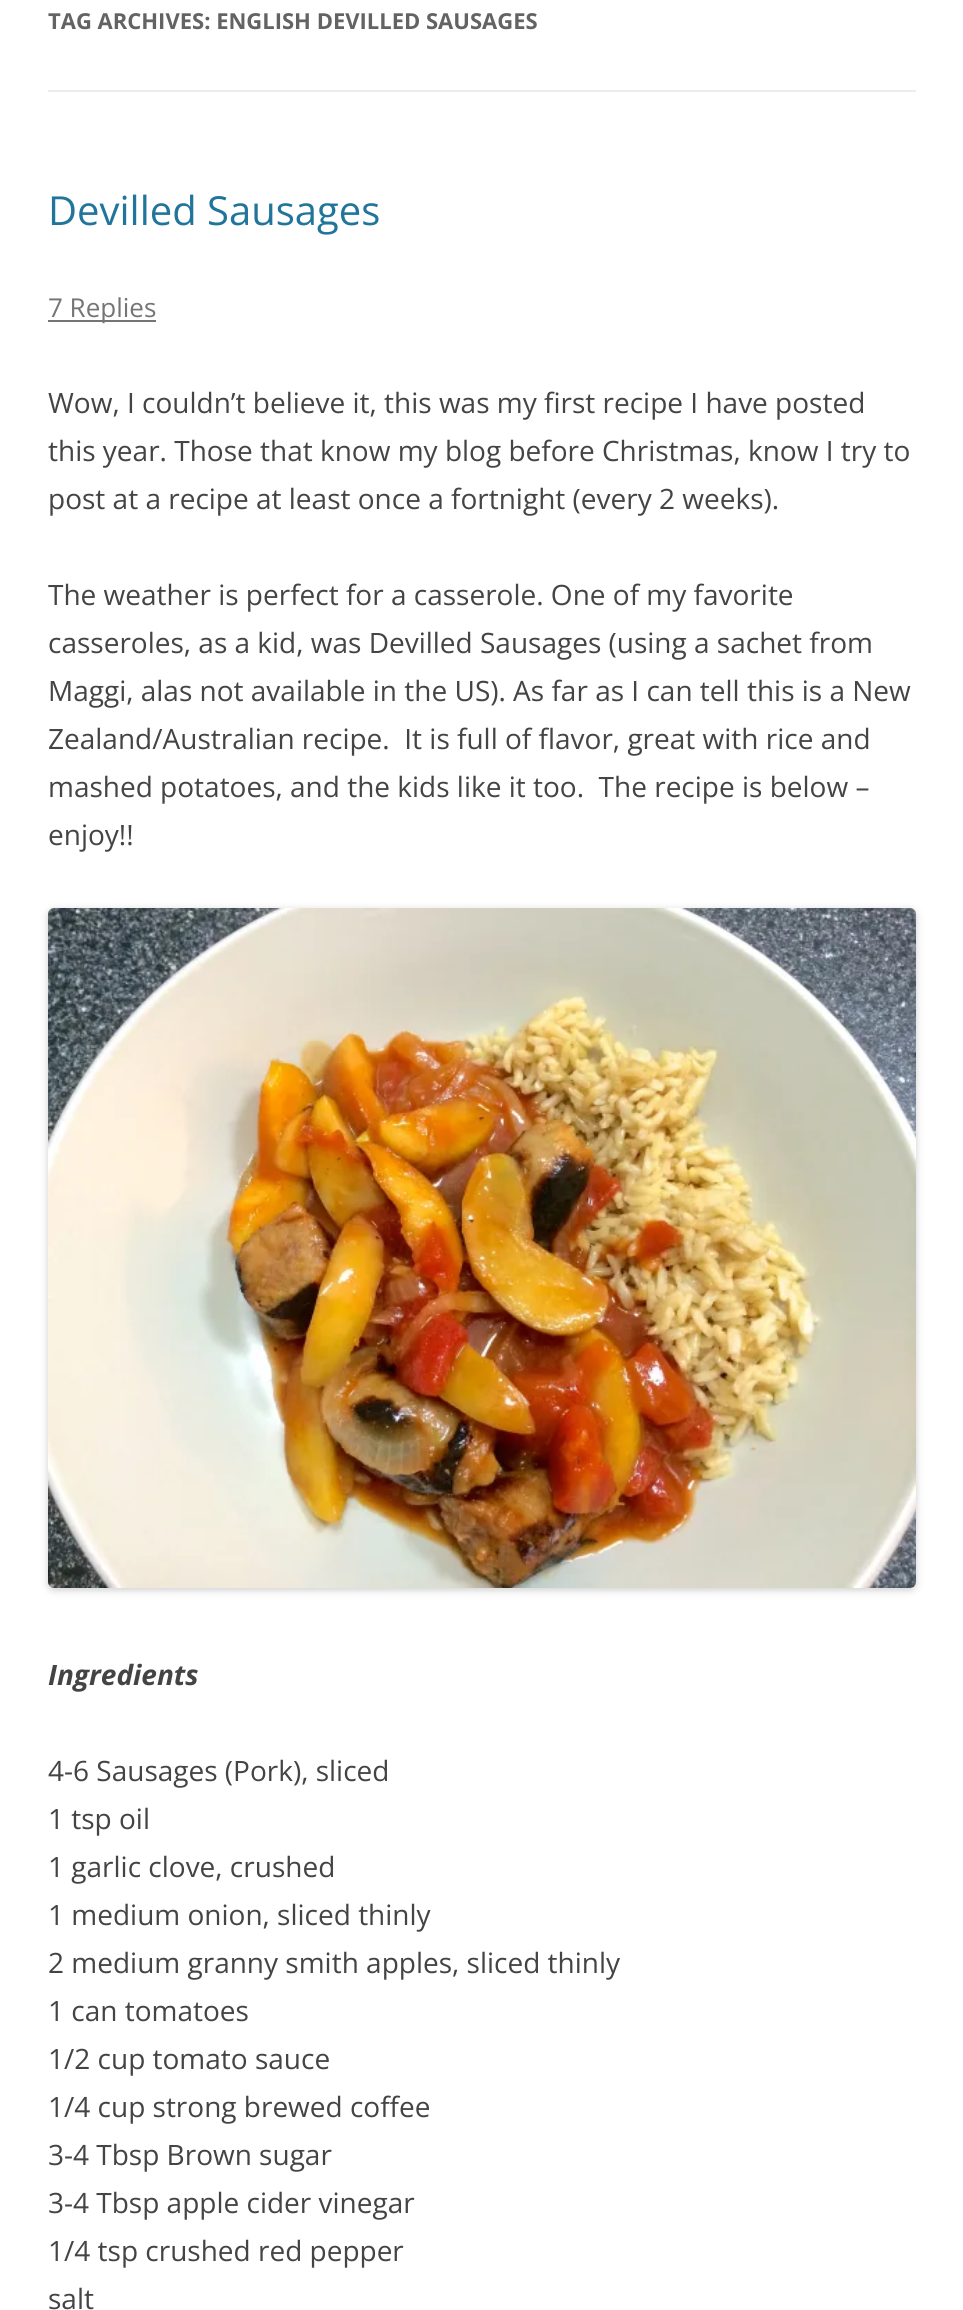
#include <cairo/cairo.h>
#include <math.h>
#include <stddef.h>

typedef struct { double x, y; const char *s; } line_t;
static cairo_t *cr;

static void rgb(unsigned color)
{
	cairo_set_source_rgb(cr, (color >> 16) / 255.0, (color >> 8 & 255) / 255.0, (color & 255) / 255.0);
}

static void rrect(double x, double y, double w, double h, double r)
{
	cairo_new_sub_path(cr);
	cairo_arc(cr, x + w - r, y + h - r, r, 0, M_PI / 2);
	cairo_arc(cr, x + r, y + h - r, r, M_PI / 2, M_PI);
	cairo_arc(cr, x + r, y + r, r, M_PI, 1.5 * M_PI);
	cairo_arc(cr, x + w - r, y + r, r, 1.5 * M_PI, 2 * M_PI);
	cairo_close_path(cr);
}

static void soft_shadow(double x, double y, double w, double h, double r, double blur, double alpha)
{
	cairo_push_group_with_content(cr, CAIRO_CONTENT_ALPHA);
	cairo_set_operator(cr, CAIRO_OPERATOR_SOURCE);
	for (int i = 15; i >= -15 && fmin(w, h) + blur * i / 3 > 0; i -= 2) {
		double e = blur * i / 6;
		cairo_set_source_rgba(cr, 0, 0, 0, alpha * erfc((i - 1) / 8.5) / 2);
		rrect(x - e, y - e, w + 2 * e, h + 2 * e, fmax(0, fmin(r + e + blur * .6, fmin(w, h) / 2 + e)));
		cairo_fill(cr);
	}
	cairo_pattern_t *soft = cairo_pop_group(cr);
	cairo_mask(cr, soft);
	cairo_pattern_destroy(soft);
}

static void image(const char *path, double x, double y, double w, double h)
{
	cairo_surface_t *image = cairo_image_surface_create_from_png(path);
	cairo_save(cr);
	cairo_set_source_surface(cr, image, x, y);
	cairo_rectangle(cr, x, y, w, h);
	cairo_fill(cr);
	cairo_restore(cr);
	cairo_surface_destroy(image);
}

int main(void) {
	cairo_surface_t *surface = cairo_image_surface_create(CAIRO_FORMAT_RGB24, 963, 2310);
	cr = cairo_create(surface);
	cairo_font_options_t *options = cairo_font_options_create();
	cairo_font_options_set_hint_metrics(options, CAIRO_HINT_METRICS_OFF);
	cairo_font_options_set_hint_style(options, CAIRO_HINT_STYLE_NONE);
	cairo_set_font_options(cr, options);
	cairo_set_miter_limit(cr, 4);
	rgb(0xffffff);
	cairo_paint(cr);
	rgb(0xededed);
	cairo_rectangle(cr, 48, 90, 868, 2);
	cairo_fill(cr);
	rgb(0x757575);
	cairo_rectangle(cr, 48, 320, 108, 2);
	cairo_fill(cr);
	rgb(0x000000);
	soft_shadow(48, 910, 868, 680, 6, 4, 0.2);
	image("img/1.png", 48, 908, 868, 680);
	cairo_select_font_face(cr, "Open Sans", CAIRO_FONT_SLANT_NORMAL, CAIRO_FONT_WEIGHT_BOLD);
	cairo_set_font_size(cr, 22);
	rgb(0x636363);
	cairo_move_to(cr, 48, 29);
	cairo_show_text(cr, "TAG ARCHIVES: ENGLISH DEVILLED SAUSAGES");
	cairo_select_font_face(cr, "Open Sans", CAIRO_FONT_SLANT_NORMAL, CAIRO_FONT_WEIGHT_NORMAL);
	cairo_set_font_size(cr, 40);
	rgb(0x21759b);
	cairo_move_to(cr, 48, 225);
	cairo_show_text(cr, "Devilled Sausages");
	cairo_set_font_size(cr, 26);
	rgb(0x757575);
	cairo_move_to(cr, 48, 317);
	cairo_show_text(cr, "7 Replies");
	cairo_set_font_size(cr, 28);
	rgb(0x444444);
	{
		static const line_t items[] = {
			{48, 413, "Wow, I couldn’t believe it, this was my first recipe I have posted"},
			{48, 461, "this year. Those that know my blog before Christmas, know I try to"},
			{48, 509, "post at a recipe at least once a fortnight (every 2 weeks)."},
			{48, 605, "The weather is perfect for a casserole. One of my favorite"},
			{48, 653, "casseroles, as a kid, was Devilled Sausages (using a sachet from"},
			{48, 701, "Maggi, alas not available in the US). As far as I can tell this is a New"},
			{48, 749, "Zealand/Australian recipe.  It is full of flavor, great with rice and"},
			{48, 797, "mashed potatoes, and the kids like it too.  The recipe is below –"},
			{48, 845, "enjoy!!"},
		};
		for (size_t i = 0; i < sizeof items / sizeof *items; i++) {
			cairo_move_to(cr, items[i].x, items[i].y);
			cairo_show_text(cr, items[i].s);
		}
	}
	cairo_select_font_face(cr, "Open Sans", CAIRO_FONT_SLANT_ITALIC, CAIRO_FONT_WEIGHT_BOLD);
	cairo_move_to(cr, 48, 1685);
	cairo_show_text(cr, "Ingredients");
	cairo_select_font_face(cr, "Open Sans", CAIRO_FONT_SLANT_NORMAL, CAIRO_FONT_WEIGHT_NORMAL);
	{
		static const line_t items[] = {
			{48, 1781, "4-6 Sausages (Pork), sliced"},
			{48, 1829, "1 tsp oil"},
			{48, 1877, "1 garlic clove, crushed"},
			{48, 1925, "1 medium onion, sliced thinly"},
			{48, 1973, "2 medium granny smith apples, sliced thinly"},
			{48, 2021, "1 can tomatoes"},
			{48, 2069, "1/2 cup tomato sauce"},
			{48, 2117, "1/4 cup strong brewed coffee"},
			{48, 2165, "3-4 Tbsp Brown sugar"},
			{48, 2213, "3-4 Tbsp apple cider vinegar"},
			{48, 2261, "1/4 tsp crushed red pepper"},
			{48, 2309, "salt"},
		};
		for (size_t i = 0; i < sizeof items / sizeof *items; i++) {
			cairo_move_to(cr, items[i].x, items[i].y);
			cairo_show_text(cr, items[i].s);
		}
	}
	cairo_surface_write_to_png(surface, "page.png");
	cairo_font_options_destroy(options);
	cairo_destroy(cr);
	cairo_surface_destroy(surface);
	return 0;
}
